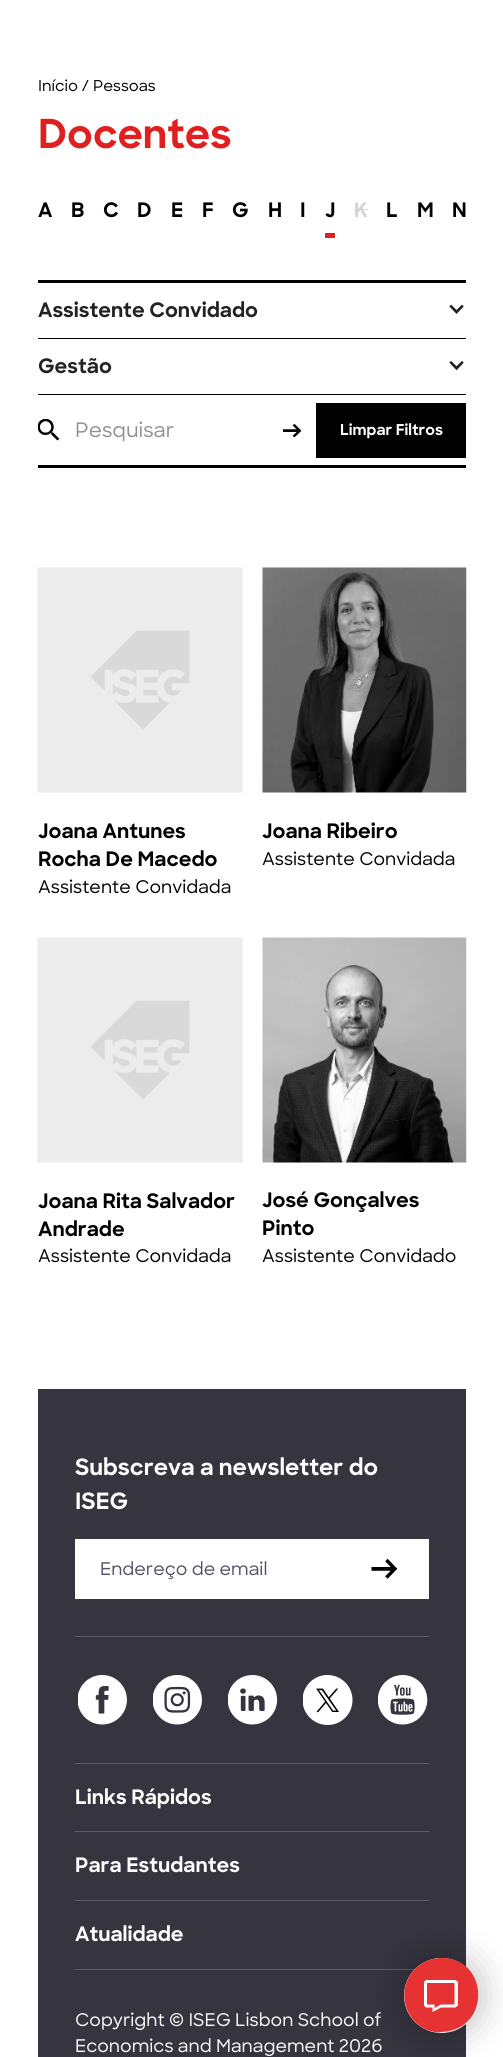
#include <cairo/cairo.h>
#include <math.h>
#include <stddef.h>

typedef struct { double x, y; const char *s; } line_t;
typedef struct { double x, y, w, h; unsigned color; } box_t;
static cairo_t *cr;

static void rgb(unsigned color)
{
	cairo_set_source_rgb(cr, (color >> 16) / 255.0, (color >> 8 & 255) / 255.0, (color & 255) / 255.0);
}

static void rrect(double x, double y, double w, double h, double r)
{
	cairo_new_sub_path(cr);
	cairo_arc(cr, x + w - r, y + h - r, r, 0, M_PI / 2);
	cairo_arc(cr, x + r, y + h - r, r, M_PI / 2, M_PI);
	cairo_arc(cr, x + r, y + r, r, M_PI, 1.5 * M_PI);
	cairo_arc(cr, x + w - r, y + r, r, 1.5 * M_PI, 2 * M_PI);
	cairo_close_path(cr);
}

static void soft_shadow(double x, double y, double w, double h, double r, double blur, double alpha)
{
	cairo_push_group_with_content(cr, CAIRO_CONTENT_ALPHA);
	cairo_set_operator(cr, CAIRO_OPERATOR_SOURCE);
	for (int i = 15; i >= -15 && fmin(w, h) + blur * i / 3 > 0; i -= 2) {
		double e = blur * i / 6;
		cairo_set_source_rgba(cr, 0, 0, 0, alpha * erfc((i - 1) / 8.5) / 2);
		rrect(x - e, y - e, w + 2 * e, h + 2 * e, fmax(0, fmin(r + e + blur * .6, fmin(w, h) / 2 + e)));
		cairo_fill(cr);
	}
	cairo_pattern_t *soft = cairo_pop_group(cr);
	cairo_mask(cr, soft);
	cairo_pattern_destroy(soft);
}

static void image(const char *path, double x, double y, double w, double h)
{
	cairo_surface_t *image = cairo_image_surface_create_from_png(path);
	cairo_save(cr);
	cairo_set_source_surface(cr, image, x, y);
	cairo_rectangle(cr, x, y, w, h);
	cairo_fill(cr);
	cairo_restore(cr);
	cairo_surface_destroy(image);
}

int main(void) {
	cairo_surface_t *surface = cairo_image_surface_create(CAIRO_FORMAT_RGB24, 503, 2057);
	cr = cairo_create(surface);
	cairo_font_options_t *options = cairo_font_options_create();
	cairo_font_options_set_hint_metrics(options, CAIRO_HINT_METRICS_OFF);
	cairo_font_options_set_hint_style(options, CAIRO_HINT_STYLE_NONE);
	cairo_set_font_options(cr, options);
	cairo_set_miter_limit(cr, 4);
	rgb(0xffffff);
	cairo_paint(cr);
	{
		static const box_t items[] = {
			{325, 233, 10, 5, 0xe02020},
			{354, 209, 14, 1, 0xd1d3d4},
			{38, 280, 428, 3, 0x000000},
			{38, 465, 428, 3, 0x000000},
			{38, 338, 428, 1, 0x000000},
		};
		for (size_t i = 0; i < sizeof items / sizeof *items; i++) {
			rgb(items[i].color);
			cairo_rectangle(cr, items[i].x, items[i].y, items[i].w, items[i].h);
			cairo_fill(cr);
		}
	}
	image("img/1.png", 449, 304, 15, 10);
	cairo_rectangle(cr, 38, 394, 428, 1);
	cairo_fill(cr);
	image("img/2.png", 449, 361, 15, 10);
	image("img/3.png", 38, 419, 22, 22);
	image("img/4.png", 283, 424, 19, 14);
	cairo_rectangle(cr, 316, 403, 150, 55);
	cairo_fill(cr);
	image("img/5.png", 37, 567, 206, 226);
	image("img/5.png", 37, 937, 206, 226);
	image("img/6.png", 262, 567, 205, 226);
	image("img/7.png", 262, 937, 205, 226);
	{
		static const box_t items[] = {
			{38, 1389, 428, 668, 0x36343f},
			{75, 1636, 354, 1, 0x5e5d65},
			{75, 1539, 354, 60, 0xffffff},
		};
		for (size_t i = 0; i < sizeof items / sizeof *items; i++) {
			rgb(items[i].color);
			cairo_rectangle(cr, items[i].x, items[i].y, items[i].w, items[i].h);
			cairo_fill(cr);
		}
	}
	image("img/8.png", 371, 1559, 27, 20);
	rgb(0x5e5d65);
	cairo_rectangle(cr, 75, 1763, 354, 1);
	cairo_fill(cr);
	image("img/9.png", 78, 1675, 49, 50);
	image("img/10.png", 153, 1675, 49, 50);
	image("img/11.png", 228, 1675, 50, 50);
	image("img/12.png", 303, 1675, 50, 50);
	image("img/13.png", 378, 1675, 50, 50);
	{
		static const box_t items[] = {
			{75, 1831, 354, 1, 0x5e5d65},
			{75, 1900, 354, 1, 0x5e5d65},
			{75, 1969, 340, 1, 0x5e5d65},
		};
		for (size_t i = 0; i < sizeof items / sizeof *items; i++) {
			rgb(items[i].color);
			cairo_rectangle(cr, items[i].x, items[i].y, items[i].w, items[i].h);
			cairo_fill(cr);
		}
	}
	rgb(0x000000);
	soft_shadow(398, 1951, 87, 88, 43.5, 15.5, 0.2);
	rgb(0xefefef);
	cairo_arc(cr, 441.5, 1995.5, 37.5, 0, 2 * M_PI);
	cairo_fill(cr);
	rgb(0xe63232);
	cairo_new_path(cr);
	cairo_move_to(cr, 442, 1958);
	cairo_curve_to(cr, 489, 1958, 492, 2030, 441, 2032);
	cairo_curve_to(cr, 436, 2033, 431, 2031, 427, 2030);
	cairo_curve_to(cr, 400, 2018, 396, 1981, 421, 1964);
	cairo_curve_to(cr, 427, 1960, 434, 1958, 442, 1958);
	cairo_close_path(cr);
	cairo_fill(cr);
	rgb(0xffffff);
	cairo_new_path(cr);
	cairo_move_to(cr, 455.5, 1980);
	cairo_line_to(cr, 426, 1980);
	cairo_line_to(cr, 424, 1982);
	cairo_line_to(cr, 424, 2005.5);
	cairo_line_to(cr, 426, 2007.5);
	cairo_line_to(cr, 432.5, 2007.5);
	cairo_line_to(cr, 432.5, 2012);
	cairo_line_to(cr, 441, 2007.5);
	cairo_line_to(cr, 455.5, 2007.5);
	cairo_line_to(cr, 458, 2005.5);
	cairo_line_to(cr, 458, 1982);
	cairo_close_path(cr);
	cairo_move_to(cr, 454.5, 2004.5);
	cairo_line_to(cr, 441, 2004.5);
	cairo_line_to(cr, 434.5, 2008);
	cairo_line_to(cr, 434.5, 2004.5);
	cairo_line_to(cr, 427, 2004.5);
	cairo_line_to(cr, 427, 1983);
	cairo_line_to(cr, 454.5, 1983);
	cairo_close_path(cr);
	cairo_fill(cr);
	cairo_select_font_face(cr, "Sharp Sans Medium", CAIRO_FONT_SLANT_NORMAL, CAIRO_FONT_WEIGHT_NORMAL);
	cairo_set_font_size(cr, 15);
	rgb(0x000000);
	cairo_move_to(cr, 38, 91);
	cairo_show_text(cr, "Início / Pessoas");
	cairo_select_font_face(cr, "Sharp Sans", CAIRO_FONT_SLANT_NORMAL, CAIRO_FONT_WEIGHT_BOLD);
	cairo_set_font_size(cr, 40);
	rgb(0xe02020);
	cairo_move_to(cr, 38, 148);
	cairo_show_text(cr, "Docentes");
	cairo_set_font_size(cr, 20);
	rgb(0x000000);
	{
		static const line_t items[] = {
			{38, 217, "A"},
			{71, 217, "B"},
			{103, 217, "C"},
			{137, 217, "D"},
			{171, 217, "E"},
			{202, 217, "F"},
			{232, 217, "G"},
			{268, 217, "H"},
			{300, 217, "I"},
			{325, 217, "J"},
		};
		for (size_t i = 0; i < sizeof items / sizeof *items; i++) {
			cairo_move_to(cr, items[i].x, items[i].y);
			cairo_show_text(cr, items[i].s);
		}
	}
	rgb(0xd1d3d4);
	cairo_move_to(cr, 354, 217);
	cairo_show_text(cr, "K");
	rgb(0x000000);
	{
		static const line_t items[] = {
			{386, 217, "L"},
			{417, 217, "M"},
			{452, 217, "N"},
		};
		for (size_t i = 0; i < sizeof items / sizeof *items; i++) {
			cairo_move_to(cr, items[i].x, items[i].y);
			cairo_show_text(cr, items[i].s);
		}
	}
	rgb(0x222222);
	cairo_move_to(cr, 38, 317);
	cairo_show_text(cr, "Assistente Convidado");
	cairo_move_to(cr, 38, 373);
	cairo_show_text(cr, "Gestão");
	cairo_select_font_face(cr, "Sharp Sans Medium", CAIRO_FONT_SLANT_NORMAL, CAIRO_FONT_WEIGHT_NORMAL);
	rgb(0x939198);
	cairo_move_to(cr, 75, 437);
	cairo_show_text(cr, "Pesquisar");
	cairo_select_font_face(cr, "Sharp Sans", CAIRO_FONT_SLANT_NORMAL, CAIRO_FONT_WEIGHT_BOLD);
	cairo_set_font_size(cr, 15);
	rgb(0xffffff);
	cairo_move_to(cr, 340, 435);
	cairo_show_text(cr, "Limpar Filtros");
	cairo_set_font_size(cr, 20);
	rgb(0x000000);
	cairo_move_to(cr, 38, 838);
	cairo_show_text(cr, "Joana Antunes");
	cairo_move_to(cr, 38, 866);
	cairo_show_text(cr, "Rocha De Macedo");
	cairo_select_font_face(cr, "Sharp Sans Medium", CAIRO_FONT_SLANT_NORMAL, CAIRO_FONT_WEIGHT_NORMAL);
	cairo_set_font_size(cr, 17.5);
	cairo_move_to(cr, 38, 893);
	cairo_show_text(cr, "Assistente Convidada");
	cairo_select_font_face(cr, "Sharp Sans", CAIRO_FONT_SLANT_NORMAL, CAIRO_FONT_WEIGHT_BOLD);
	cairo_set_font_size(cr, 20);
	cairo_move_to(cr, 38, 1208);
	cairo_show_text(cr, "Joana Rita Salvador");
	cairo_move_to(cr, 38, 1236);
	cairo_show_text(cr, "Andrade");
	cairo_select_font_face(cr, "Sharp Sans Medium", CAIRO_FONT_SLANT_NORMAL, CAIRO_FONT_WEIGHT_NORMAL);
	cairo_set_font_size(cr, 17.5);
	cairo_move_to(cr, 38, 1262);
	cairo_show_text(cr, "Assistente Convidada");
	cairo_select_font_face(cr, "Sharp Sans", CAIRO_FONT_SLANT_NORMAL, CAIRO_FONT_WEIGHT_BOLD);
	cairo_set_font_size(cr, 20);
	cairo_move_to(cr, 262, 838);
	cairo_show_text(cr, "Joana Ribeiro");
	cairo_select_font_face(cr, "Sharp Sans Medium", CAIRO_FONT_SLANT_NORMAL, CAIRO_FONT_WEIGHT_NORMAL);
	cairo_set_font_size(cr, 17.5);
	cairo_move_to(cr, 262, 865);
	cairo_show_text(cr, "Assistente Convidada");
	cairo_select_font_face(cr, "Sharp Sans", CAIRO_FONT_SLANT_NORMAL, CAIRO_FONT_WEIGHT_BOLD);
	cairo_set_font_size(cr, 20);
	cairo_move_to(cr, 262, 1207);
	cairo_show_text(cr, "José Gonçalves");
	cairo_move_to(cr, 262, 1235);
	cairo_show_text(cr, "Pinto");
	cairo_select_font_face(cr, "Sharp Sans Medium", CAIRO_FONT_SLANT_NORMAL, CAIRO_FONT_WEIGHT_NORMAL);
	cairo_set_font_size(cr, 17.5);
	cairo_move_to(cr, 262, 1262);
	cairo_show_text(cr, "Assistente Convidado");
	cairo_select_font_face(cr, "Sharp Sans", CAIRO_FONT_SLANT_NORMAL, CAIRO_FONT_WEIGHT_BOLD);
	cairo_set_font_size(cr, 22.5);
	rgb(0xffffff);
	cairo_move_to(cr, 75, 1475);
	cairo_show_text(cr, "Subscreva a newsletter do");
	cairo_move_to(cr, 75, 1509);
	cairo_show_text(cr, "ISEG");
	cairo_select_font_face(cr, "Sharp Sans Medium", CAIRO_FONT_SLANT_NORMAL, CAIRO_FONT_WEIGHT_NORMAL);
	cairo_set_font_size(cr, 17.5);
	rgb(0x555161);
	cairo_move_to(cr, 100, 1575);
	cairo_show_text(cr, "Endereço de email");
	cairo_select_font_face(cr, "Sharp Sans", CAIRO_FONT_SLANT_NORMAL, CAIRO_FONT_WEIGHT_BOLD);
	cairo_set_font_size(cr, 20);
	rgb(0xffffff);
	{
		static const line_t items[] = {
			{75, 1804, "Links Rápidos"},
			{75, 1872, "Para Estudantes"},
			{75, 1941, "Atualidade"},
		};
		for (size_t i = 0; i < sizeof items / sizeof *items; i++) {
			cairo_move_to(cr, items[i].x, items[i].y);
			cairo_show_text(cr, items[i].s);
		}
	}
	cairo_select_font_face(cr, "Sharp Sans Medium", CAIRO_FONT_SLANT_NORMAL, CAIRO_FONT_WEIGHT_NORMAL);
	cairo_set_font_size(cr, 17.5);
	cairo_move_to(cr, 75, 2026);
	cairo_show_text(cr, "Copyright © ISEG Lisbon School of");
	cairo_move_to(cr, 75, 2052);
	cairo_show_text(cr, "Economics and Management 2026");
	cairo_surface_write_to_png(surface, "page.png");
	cairo_font_options_destroy(options);
	cairo_destroy(cr);
	cairo_surface_destroy(surface);
	return 0;
}
